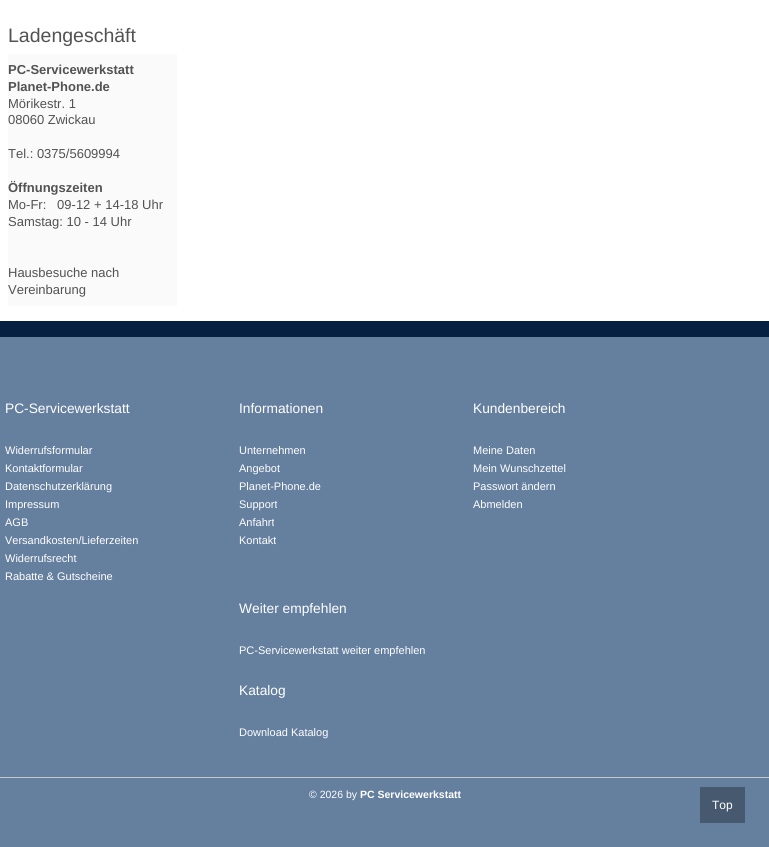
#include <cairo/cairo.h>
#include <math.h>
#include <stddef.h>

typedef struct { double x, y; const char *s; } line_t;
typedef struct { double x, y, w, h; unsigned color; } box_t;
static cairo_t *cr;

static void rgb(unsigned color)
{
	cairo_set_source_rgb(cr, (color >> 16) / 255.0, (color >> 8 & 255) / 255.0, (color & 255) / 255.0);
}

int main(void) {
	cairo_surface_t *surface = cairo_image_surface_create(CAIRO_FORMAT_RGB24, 769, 847);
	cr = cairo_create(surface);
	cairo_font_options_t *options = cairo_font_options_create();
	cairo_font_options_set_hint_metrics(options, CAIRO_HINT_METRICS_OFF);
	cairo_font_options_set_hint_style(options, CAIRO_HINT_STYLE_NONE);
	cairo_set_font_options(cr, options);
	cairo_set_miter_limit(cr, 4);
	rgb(0xffffff);
	cairo_paint(cr);
	{
		static const box_t items[] = {
			{8, 54, 169, 252, 0xfafafa},
			{0, 321, 769, 16, 0x062041},
			{0, 337, 769, 510, 0x657f9f},
			{0, 777, 769, 1, 0xc7c7c7},
			{700, 787, 45, 36, 0x47596f},
		};
		for (size_t i = 0; i < sizeof items / sizeof *items; i++) {
			rgb(items[i].color);
			cairo_rectangle(cr, items[i].x, items[i].y, items[i].w, items[i].h);
			cairo_fill(cr);
		}
	}
	cairo_select_font_face(cr, "Liberation Sans", CAIRO_FONT_SLANT_NORMAL, CAIRO_FONT_WEIGHT_NORMAL);
	cairo_set_font_size(cr, 19.5);
	rgb(0x525252);
	cairo_move_to(cr, 8, 42);
	cairo_show_text(cr, "Ladengeschäft");
	cairo_select_font_face(cr, "Liberation Sans", CAIRO_FONT_SLANT_NORMAL, CAIRO_FONT_WEIGHT_BOLD);
	cairo_set_font_size(cr, 13);
	cairo_move_to(cr, 8, 74);
	cairo_show_text(cr, "PC-Servicewerkstatt");
	cairo_move_to(cr, 8, 91);
	cairo_show_text(cr, "Planet-Phone.de");
	cairo_select_font_face(cr, "Liberation Sans", CAIRO_FONT_SLANT_NORMAL, CAIRO_FONT_WEIGHT_NORMAL);
	{
		static const line_t items[] = {
			{8, 108, "Mörikestr. 1"},
			{8, 124, "08060 Zwickau"},
			{8, 158, "Tel.: 0375/5609994"},
		};
		for (size_t i = 0; i < sizeof items / sizeof *items; i++) {
			cairo_move_to(cr, items[i].x, items[i].y);
			cairo_show_text(cr, items[i].s);
		}
	}
	cairo_select_font_face(cr, "Liberation Sans", CAIRO_FONT_SLANT_NORMAL, CAIRO_FONT_WEIGHT_BOLD);
	cairo_move_to(cr, 8, 192);
	cairo_show_text(cr, "Öffnungszeiten");
	cairo_select_font_face(cr, "Liberation Sans", CAIRO_FONT_SLANT_NORMAL, CAIRO_FONT_WEIGHT_NORMAL);
	{
		static const line_t items[] = {
			{8, 209, "Mo-Fr:   09-12 + 14-18 Uhr"},
			{8, 226, "Samstag: 10 - 14 Uhr"},
			{8, 277, "Hausbesuche nach"},
			{8, 294, "Vereinbarung"},
		};
		for (size_t i = 0; i < sizeof items / sizeof *items; i++) {
			cairo_move_to(cr, items[i].x, items[i].y);
			cairo_show_text(cr, items[i].s);
		}
	}
	cairo_set_font_size(cr, 13.75);
	rgb(0xffffff);
	cairo_move_to(cr, 5, 413);
	cairo_show_text(cr, "PC-Servicewerkstatt");
	cairo_set_font_size(cr, 11);
	{
		static const line_t items[] = {
			{5, 454, "Widerrufsformular"},
			{5, 472, "Kontaktformular"},
			{5, 490, "Datenschutzerklärung"},
			{5, 508, "Impressum"},
			{5, 526, "AGB"},
			{5, 544, "Versandkosten/Lieferzeiten"},
			{5, 562, "Widerrufsrecht"},
			{5, 580, "Rabatte & Gutscheine"},
		};
		for (size_t i = 0; i < sizeof items / sizeof *items; i++) {
			cairo_move_to(cr, items[i].x, items[i].y);
			cairo_show_text(cr, items[i].s);
		}
	}
	cairo_set_font_size(cr, 13.75);
	cairo_move_to(cr, 239, 413);
	cairo_show_text(cr, "Informationen");
	cairo_set_font_size(cr, 11);
	{
		static const line_t items[] = {
			{239, 454, "Unternehmen"},
			{239, 472, "Angebot"},
			{239, 490, "Planet-Phone.de"},
			{239, 508, "Support"},
			{239, 526, "Anfahrt"},
			{239, 544, "Kontakt"},
		};
		for (size_t i = 0; i < sizeof items / sizeof *items; i++) {
			cairo_move_to(cr, items[i].x, items[i].y);
			cairo_show_text(cr, items[i].s);
		}
	}
	cairo_set_font_size(cr, 13.75);
	cairo_move_to(cr, 473, 413);
	cairo_show_text(cr, "Kundenbereich");
	cairo_set_font_size(cr, 11);
	{
		static const line_t items[] = {
			{473, 454, "Meine Daten"},
			{473, 472, "Mein Wunschzettel"},
			{473, 490, "Passwort ändern"},
			{473, 508, "Abmelden"},
		};
		for (size_t i = 0; i < sizeof items / sizeof *items; i++) {
			cairo_move_to(cr, items[i].x, items[i].y);
			cairo_show_text(cr, items[i].s);
		}
	}
	cairo_set_font_size(cr, 13.75);
	cairo_move_to(cr, 239, 613);
	cairo_show_text(cr, "Weiter empfehlen");
	cairo_set_font_size(cr, 11);
	cairo_move_to(cr, 239, 654);
	cairo_show_text(cr, "PC-Servicewerkstatt weiter empfehlen");
	cairo_set_font_size(cr, 13.75);
	cairo_move_to(cr, 239, 695);
	cairo_show_text(cr, "Katalog");
	cairo_set_font_size(cr, 11);
	cairo_move_to(cr, 239, 736);
	cairo_show_text(cr, "Download Katalog");
	cairo_set_font_size(cr, 10.5);
	cairo_move_to(cr, 309, 798);
	cairo_show_text(cr, "© 2026 by");
	cairo_select_font_face(cr, "Liberation Sans", CAIRO_FONT_SLANT_NORMAL, CAIRO_FONT_WEIGHT_BOLD);
	cairo_move_to(cr, 360, 798);
	cairo_show_text(cr, "PC Servicewerkstatt");
	cairo_select_font_face(cr, "Liberation Sans", CAIRO_FONT_SLANT_NORMAL, CAIRO_FONT_WEIGHT_NORMAL);
	cairo_set_font_size(cr, 12);
	cairo_move_to(cr, 712, 809);
	cairo_show_text(cr, "Top");
	cairo_surface_write_to_png(surface, "page.png");
	cairo_font_options_destroy(options);
	cairo_destroy(cr);
	cairo_surface_destroy(surface);
	return 0;
}
